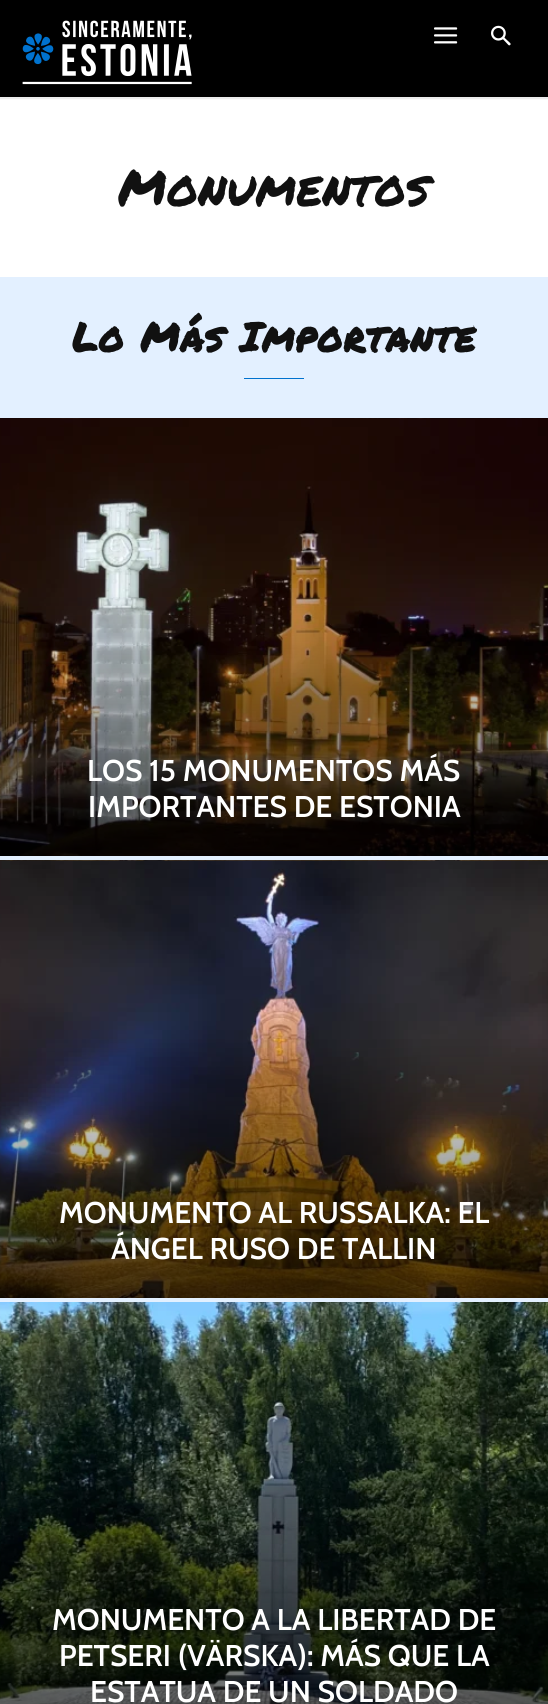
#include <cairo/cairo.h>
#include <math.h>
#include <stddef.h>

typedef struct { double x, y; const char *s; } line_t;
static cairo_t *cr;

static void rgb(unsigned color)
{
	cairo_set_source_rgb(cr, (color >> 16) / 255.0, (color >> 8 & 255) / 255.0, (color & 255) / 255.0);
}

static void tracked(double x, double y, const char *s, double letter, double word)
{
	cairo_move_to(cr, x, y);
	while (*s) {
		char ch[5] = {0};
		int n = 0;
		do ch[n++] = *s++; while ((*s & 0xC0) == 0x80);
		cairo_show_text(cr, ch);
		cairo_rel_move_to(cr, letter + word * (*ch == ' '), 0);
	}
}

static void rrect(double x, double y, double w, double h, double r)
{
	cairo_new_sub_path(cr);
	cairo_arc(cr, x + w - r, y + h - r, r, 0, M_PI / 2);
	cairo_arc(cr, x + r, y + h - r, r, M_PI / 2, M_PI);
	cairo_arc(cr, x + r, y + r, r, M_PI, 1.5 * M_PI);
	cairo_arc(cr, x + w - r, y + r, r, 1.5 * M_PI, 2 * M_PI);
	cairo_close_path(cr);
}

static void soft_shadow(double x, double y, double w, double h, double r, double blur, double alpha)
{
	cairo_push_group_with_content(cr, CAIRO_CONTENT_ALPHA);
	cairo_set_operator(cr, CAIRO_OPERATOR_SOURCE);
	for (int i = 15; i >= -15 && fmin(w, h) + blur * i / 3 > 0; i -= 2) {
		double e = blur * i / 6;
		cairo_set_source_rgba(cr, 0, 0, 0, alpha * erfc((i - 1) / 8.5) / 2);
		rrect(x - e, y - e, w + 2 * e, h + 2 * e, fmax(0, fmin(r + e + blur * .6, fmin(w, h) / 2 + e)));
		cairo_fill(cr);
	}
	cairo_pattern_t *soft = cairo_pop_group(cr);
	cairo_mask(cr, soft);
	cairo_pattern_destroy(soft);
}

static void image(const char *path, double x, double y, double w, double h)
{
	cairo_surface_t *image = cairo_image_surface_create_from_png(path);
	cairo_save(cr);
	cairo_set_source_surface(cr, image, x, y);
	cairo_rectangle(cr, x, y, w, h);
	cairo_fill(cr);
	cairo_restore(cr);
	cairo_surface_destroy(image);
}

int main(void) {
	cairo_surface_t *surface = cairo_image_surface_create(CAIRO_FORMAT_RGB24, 548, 1704);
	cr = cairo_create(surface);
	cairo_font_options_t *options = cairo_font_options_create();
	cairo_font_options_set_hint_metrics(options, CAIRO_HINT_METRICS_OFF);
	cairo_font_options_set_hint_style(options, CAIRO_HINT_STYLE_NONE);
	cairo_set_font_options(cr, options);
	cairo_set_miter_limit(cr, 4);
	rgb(0xffffff);
	cairo_paint(cr);
	rgb(0x000000);
	soft_shadow(-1, 0, 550, 99, 0, 0.5, 0.08);
	rgb(0x000000);
	cairo_rectangle(cr, 0, 0, 548, 97);
	cairo_fill(cr);
	image("img/1.png", 22, 20, 170, 65);
	image("img/2.png", 434, 27, 24, 17);
	image("img/3.png", 491, 25, 20, 21);
	rgb(0xe3f0ff);
	cairo_rectangle(cr, 0, 277, 548, 1025);
	cairo_fill(cr);
	rgb(0x0072ce);
	cairo_rectangle(cr, 244, 378, 60, 1);
	cairo_fill(cr);
	image("img/4.png", 0, 418, 548, 438);
	image("img/5.png", 0, 860, 548, 438);
	image("img/6.png", 0, 1302, 548, 402);
	cairo_select_font_face(cr, "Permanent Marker", CAIRO_FONT_SLANT_NORMAL, CAIRO_FONT_WEIGHT_NORMAL);
	cairo_set_font_size(cr, 50);
	rgb(0x111111);
	cairo_move_to(cr, 118, 206);
	cairo_show_text(cr, "Monumentos");
	cairo_select_font_face(cr, "Permanent Marker", CAIRO_FONT_SLANT_NORMAL, CAIRO_FONT_WEIGHT_BOLD);
	cairo_set_font_size(cr, 40);
	tracked(72, 352, "Lo Más Importante", 1, 0);
	cairo_select_font_face(cr, "Cabin SemiBold", CAIRO_FONT_SLANT_NORMAL, CAIRO_FONT_WEIGHT_NORMAL);
	cairo_set_font_size(cr, 30);
	rgb(0xffffff);
	{
		static const line_t items[] = {
			{87, 781, "LOS 15 MONUMENTOS MÁS"},
			{88, 817, "IMPORTANTES DE ESTONIA"},
			{59, 1223, "MONUMENTO AL RUSSALKA: EL"},
			{111, 1259, "ÁNGEL RUSO DE TALLIN"},
			{52, 1630, "MONUMENTO A LA LIBERTAD DE"},
			{59, 1666, "PETSERI (VÄRSKA): MÁS QUE LA"},
			{90, 1702, "ESTATUA DE UN SOLDADO"},
		};
		for (size_t i = 0; i < sizeof items / sizeof *items; i++) {
			cairo_move_to(cr, items[i].x, items[i].y);
			cairo_show_text(cr, items[i].s);
		}
	}
	cairo_surface_write_to_png(surface, "page.png");
	cairo_font_options_destroy(options);
	cairo_destroy(cr);
	cairo_surface_destroy(surface);
	return 0;
}
